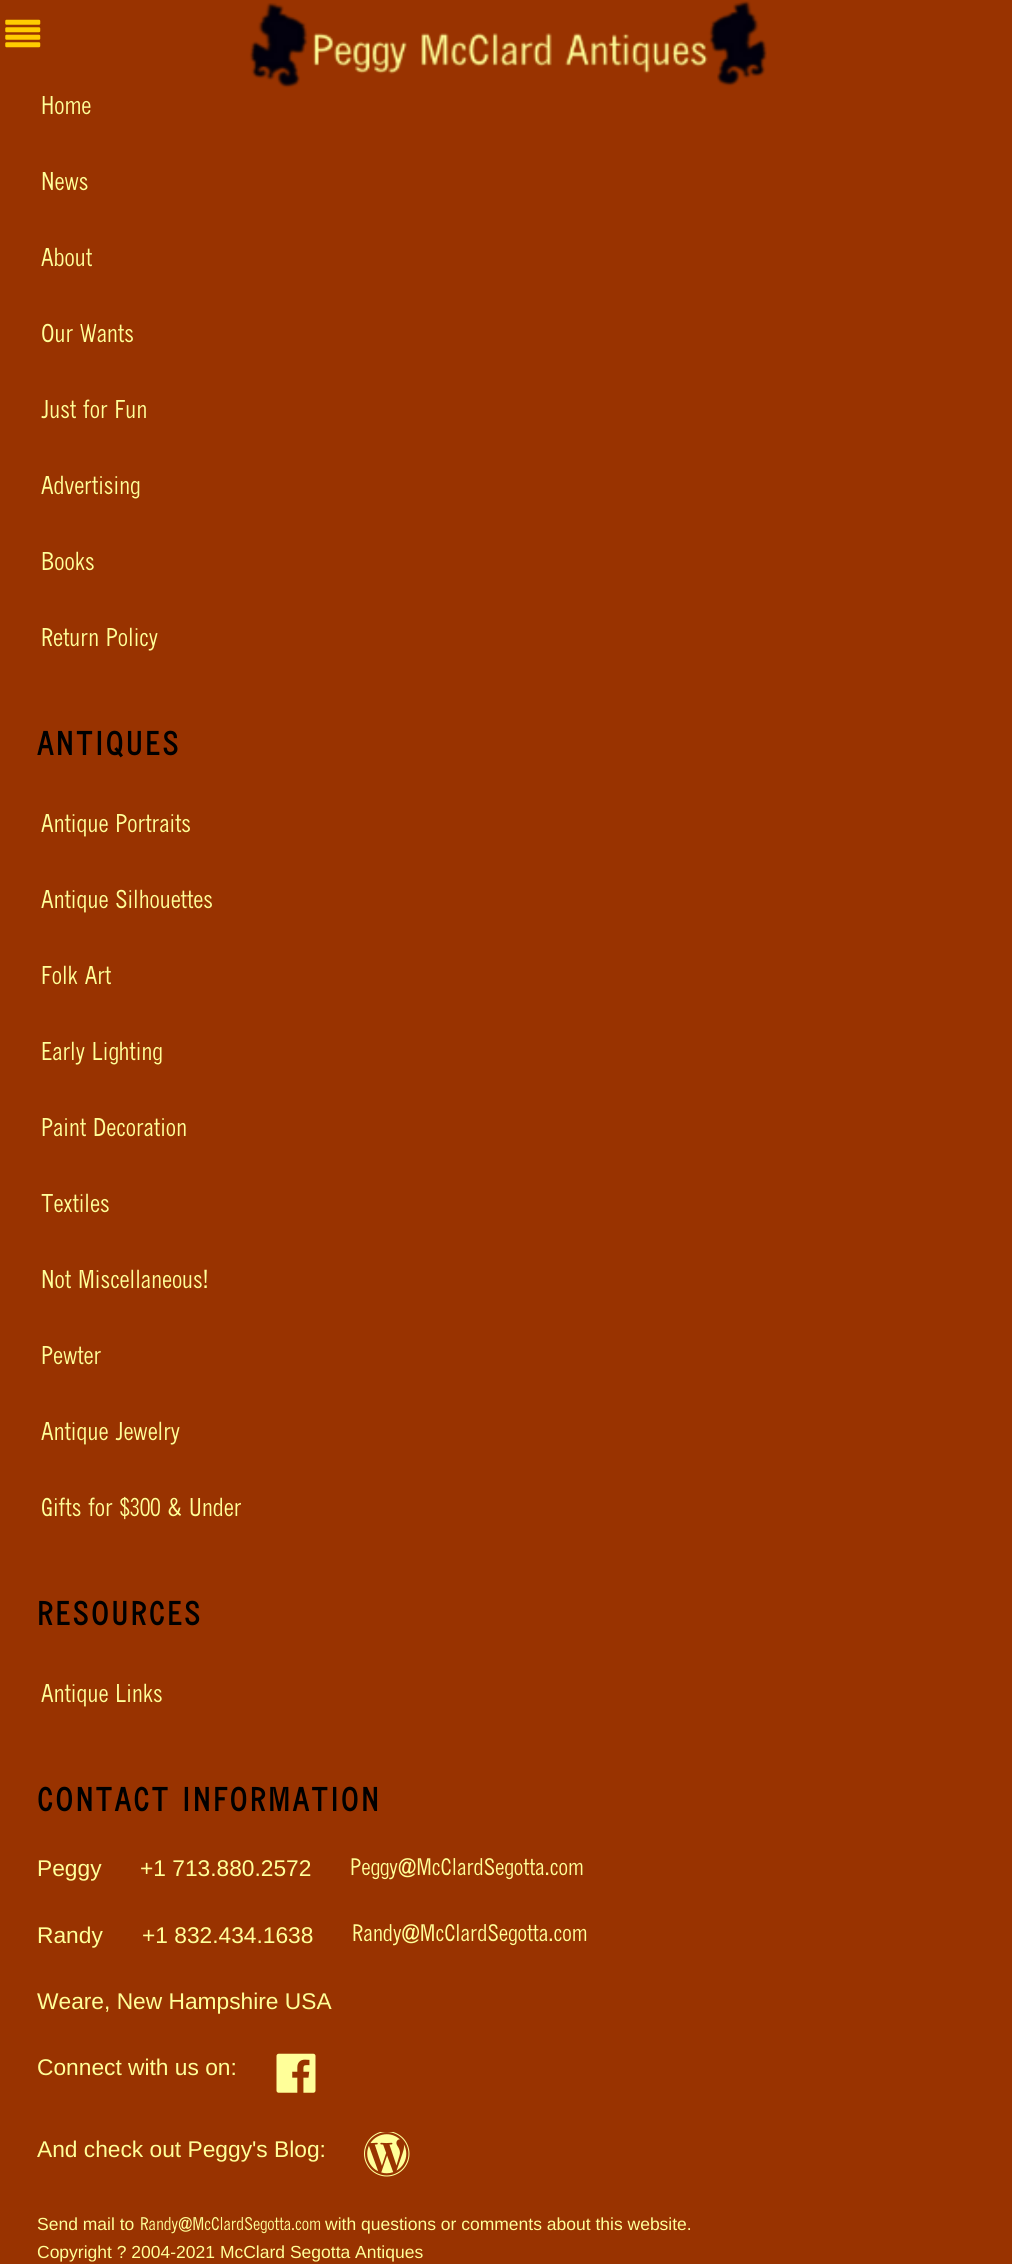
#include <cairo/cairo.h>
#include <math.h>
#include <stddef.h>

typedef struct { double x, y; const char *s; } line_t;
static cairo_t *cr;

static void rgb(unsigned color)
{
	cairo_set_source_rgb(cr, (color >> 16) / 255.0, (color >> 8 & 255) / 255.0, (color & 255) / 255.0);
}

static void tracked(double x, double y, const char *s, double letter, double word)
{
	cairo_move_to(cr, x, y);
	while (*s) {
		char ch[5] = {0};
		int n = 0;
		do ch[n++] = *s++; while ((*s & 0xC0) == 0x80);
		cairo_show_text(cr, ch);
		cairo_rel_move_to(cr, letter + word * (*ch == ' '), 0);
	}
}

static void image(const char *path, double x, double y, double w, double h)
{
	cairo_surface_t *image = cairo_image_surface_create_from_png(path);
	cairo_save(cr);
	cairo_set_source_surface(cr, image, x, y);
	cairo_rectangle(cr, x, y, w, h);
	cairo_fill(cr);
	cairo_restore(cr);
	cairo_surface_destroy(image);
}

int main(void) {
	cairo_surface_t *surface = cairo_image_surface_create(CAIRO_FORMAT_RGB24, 1012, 2264);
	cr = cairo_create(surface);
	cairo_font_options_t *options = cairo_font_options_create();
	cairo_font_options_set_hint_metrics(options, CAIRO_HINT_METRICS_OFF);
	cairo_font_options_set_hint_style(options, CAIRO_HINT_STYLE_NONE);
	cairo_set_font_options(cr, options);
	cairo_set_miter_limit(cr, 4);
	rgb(0x993300);
	cairo_paint(cr);
	image("img/1.png", 5, 19, 36, 29);
	image("img/2.png", 249, 1, 518, 87);
	image("img/3.png", 276, 2053, 40, 40);
	image("img/4.png", 364, 2132, 46, 45);
	cairo_select_font_face(cr, "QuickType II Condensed", CAIRO_FONT_SLANT_NORMAL, CAIRO_FONT_WEIGHT_NORMAL);
	cairo_set_font_size(cr, 24.5);
	rgb(0xffff99);
	{
		static const line_t items[] = {
			{41, 114, "Home"},
			{41, 190, "News"},
			{41, 266, "About"},
			{41, 342, "Our Wants"},
			{41, 418, "Just for Fun"},
			{41, 494, "Advertising"},
			{41, 570, "Books"},
			{41, 646, "Return Policy"},
		};
		for (size_t i = 0; i < sizeof items / sizeof *items; i++) {
			cairo_move_to(cr, items[i].x, items[i].y);
			cairo_show_text(cr, items[i].s);
		}
	}
	cairo_select_font_face(cr, "QuickType II Condensed", CAIRO_FONT_SLANT_NORMAL, CAIRO_FONT_WEIGHT_BOLD);
	cairo_set_font_size(cr, 31.5);
	rgb(0x000000);
	tracked(37, 755, "ANTIQUES", 2.8, 0);
	cairo_select_font_face(cr, "QuickType II Condensed", CAIRO_FONT_SLANT_NORMAL, CAIRO_FONT_WEIGHT_NORMAL);
	cairo_set_font_size(cr, 24.5);
	rgb(0xffff99);
	{
		static const line_t items[] = {
			{41, 832, "Antique Portraits"},
			{41, 908, "Antique Silhouettes"},
			{41, 984, "Folk Art"},
			{41, 1060, "Early Lighting"},
			{41, 1136, "Paint Decoration"},
			{41, 1212, "Textiles"},
			{41, 1288, "Not Miscellaneous!"},
			{41, 1364, "Pewter"},
			{41, 1440, "Antique Jewelry"},
			{41, 1516, "Gifts for $300 & Under"},
		};
		for (size_t i = 0; i < sizeof items / sizeof *items; i++) {
			cairo_move_to(cr, items[i].x, items[i].y);
			cairo_show_text(cr, items[i].s);
		}
	}
	cairo_select_font_face(cr, "QuickType II Condensed", CAIRO_FONT_SLANT_NORMAL, CAIRO_FONT_WEIGHT_BOLD);
	cairo_set_font_size(cr, 31.5);
	rgb(0x000000);
	tracked(37, 1625, "RESOURCES", 2.8, 0);
	cairo_select_font_face(cr, "QuickType II Condensed", CAIRO_FONT_SLANT_NORMAL, CAIRO_FONT_WEIGHT_NORMAL);
	cairo_set_font_size(cr, 24.5);
	rgb(0xffff99);
	cairo_move_to(cr, 41, 1702);
	cairo_show_text(cr, "Antique Links");
	cairo_select_font_face(cr, "QuickType II Condensed", CAIRO_FONT_SLANT_NORMAL, CAIRO_FONT_WEIGHT_BOLD);
	cairo_set_font_size(cr, 31.5);
	rgb(0x000000);
	tracked(37, 1811, "CONTACT INFORMATION", 2.8, 0);
	cairo_select_font_face(cr, "Liberation Sans", CAIRO_FONT_SLANT_NORMAL, CAIRO_FONT_WEIGHT_NORMAL);
	cairo_set_font_size(cr, 22.75);
	rgb(0xffff99);
	cairo_move_to(cr, 37, 1876);
	cairo_show_text(cr, "Peggy");
	cairo_move_to(cr, 140, 1876);
	cairo_show_text(cr, "+1 713.880.2572");
	cairo_select_font_face(cr, "QuickType II Condensed", CAIRO_FONT_SLANT_NORMAL, CAIRO_FONT_WEIGHT_NORMAL);
	cairo_move_to(cr, 350, 1875);
	cairo_show_text(cr, "Peggy@McClardSegotta.com");
	cairo_select_font_face(cr, "Liberation Sans", CAIRO_FONT_SLANT_NORMAL, CAIRO_FONT_WEIGHT_NORMAL);
	cairo_move_to(cr, 37, 1943);
	cairo_show_text(cr, "Randy");
	cairo_move_to(cr, 142, 1943);
	cairo_show_text(cr, "+1 832.434.1638");
	cairo_select_font_face(cr, "QuickType II Condensed", CAIRO_FONT_SLANT_NORMAL, CAIRO_FONT_WEIGHT_NORMAL);
	cairo_move_to(cr, 352, 1941);
	cairo_show_text(cr, "Randy@McClardSegotta.com");
	cairo_select_font_face(cr, "Liberation Sans", CAIRO_FONT_SLANT_NORMAL, CAIRO_FONT_WEIGHT_NORMAL);
	{
		static const line_t items[] = {
			{37, 2009, "Weare, New Hampshire USA"},
			{37, 2075, "Connect with us on:"},
			{37, 2157, "And check out Peggy's Blog:"},
		};
		for (size_t i = 0; i < sizeof items / sizeof *items; i++) {
			cairo_move_to(cr, items[i].x, items[i].y);
			cairo_show_text(cr, items[i].s);
		}
	}
	cairo_set_font_size(cr, 17.5);
	cairo_move_to(cr, 37, 2230);
	cairo_show_text(cr, "Send mail to");
	cairo_select_font_face(cr, "QuickType II Condensed", CAIRO_FONT_SLANT_NORMAL, CAIRO_FONT_WEIGHT_NORMAL);
	cairo_move_to(cr, 140, 2230);
	cairo_show_text(cr, "Randy@McClardSegotta.com");
	cairo_select_font_face(cr, "Liberation Sans", CAIRO_FONT_SLANT_NORMAL, CAIRO_FONT_WEIGHT_NORMAL);
	cairo_move_to(cr, 325, 2230);
	cairo_show_text(cr, "with questions or comments about this website.");
	cairo_move_to(cr, 37, 2258);
	cairo_show_text(cr, "Copyright ? 2004-2021 McClard Segotta Antiques");
	cairo_surface_write_to_png(surface, "page.png");
	cairo_font_options_destroy(options);
	cairo_destroy(cr);
	cairo_surface_destroy(surface);
	return 0;
}
